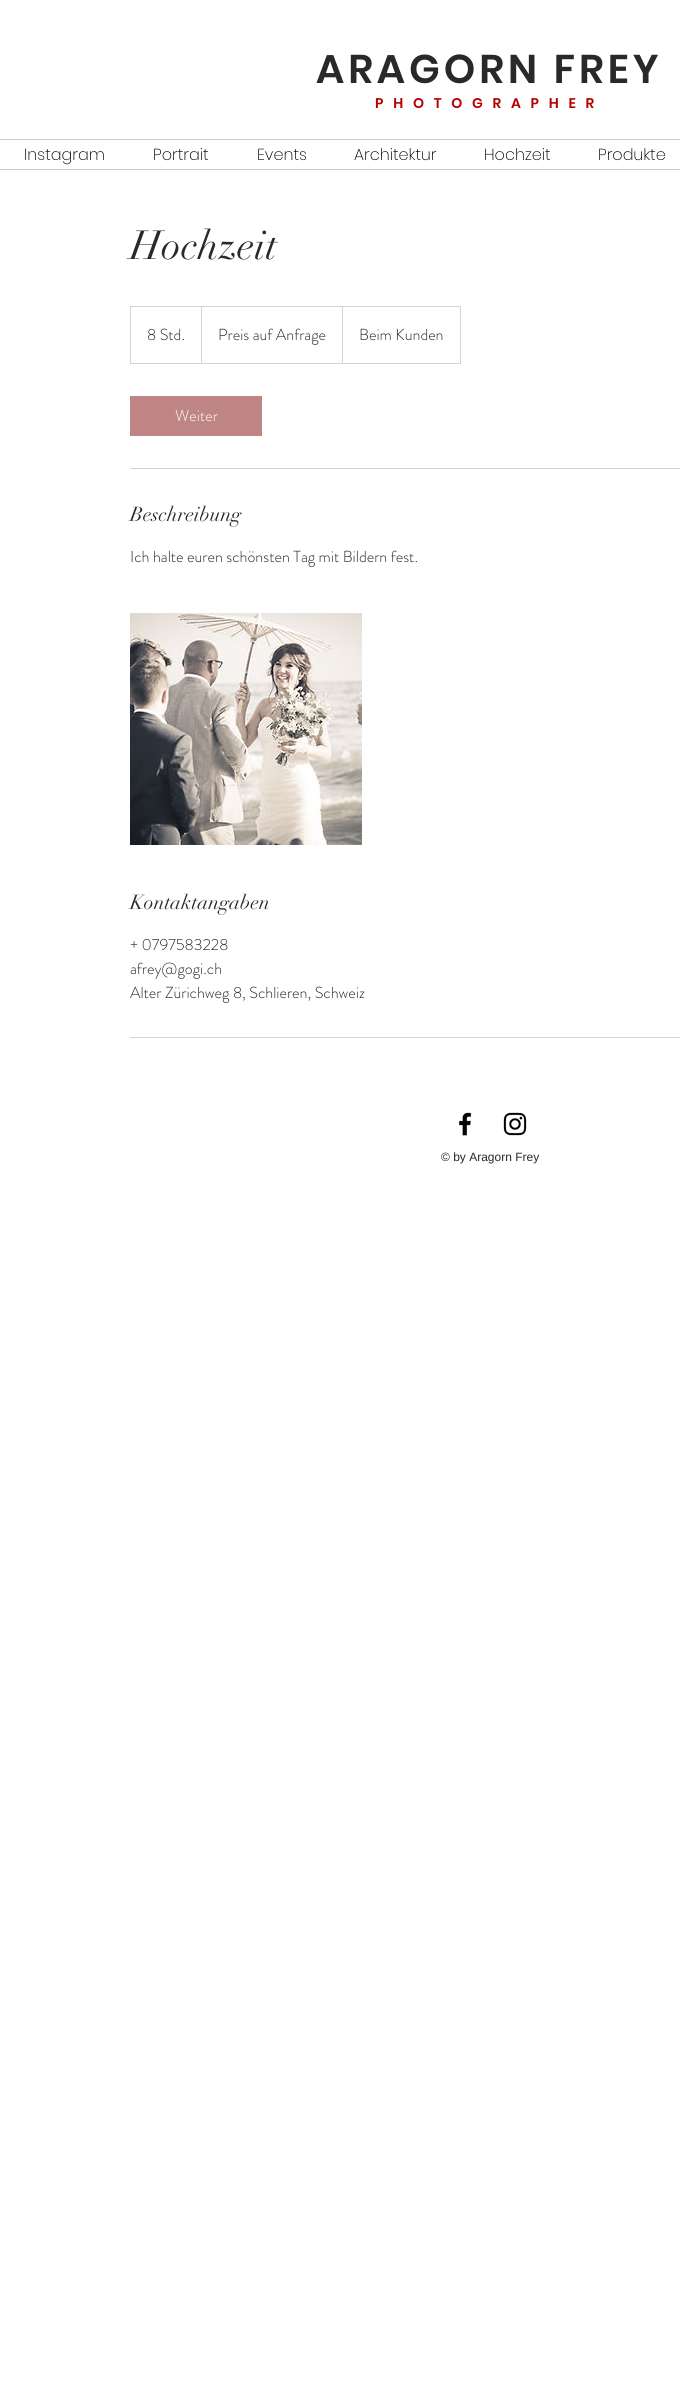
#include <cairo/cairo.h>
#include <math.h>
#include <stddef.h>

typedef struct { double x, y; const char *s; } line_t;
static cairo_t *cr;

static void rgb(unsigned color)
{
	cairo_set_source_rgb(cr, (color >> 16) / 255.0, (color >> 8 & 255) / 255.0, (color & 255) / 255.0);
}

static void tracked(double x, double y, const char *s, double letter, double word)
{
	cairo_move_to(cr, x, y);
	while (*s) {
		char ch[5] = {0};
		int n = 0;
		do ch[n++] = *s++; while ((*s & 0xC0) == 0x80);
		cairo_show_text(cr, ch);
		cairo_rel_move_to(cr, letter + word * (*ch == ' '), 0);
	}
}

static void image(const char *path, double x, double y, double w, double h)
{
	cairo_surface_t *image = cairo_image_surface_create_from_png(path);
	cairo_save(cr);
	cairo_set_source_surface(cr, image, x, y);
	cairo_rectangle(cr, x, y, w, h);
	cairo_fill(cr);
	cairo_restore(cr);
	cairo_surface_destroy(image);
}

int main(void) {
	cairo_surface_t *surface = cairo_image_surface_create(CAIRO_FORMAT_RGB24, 680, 2395);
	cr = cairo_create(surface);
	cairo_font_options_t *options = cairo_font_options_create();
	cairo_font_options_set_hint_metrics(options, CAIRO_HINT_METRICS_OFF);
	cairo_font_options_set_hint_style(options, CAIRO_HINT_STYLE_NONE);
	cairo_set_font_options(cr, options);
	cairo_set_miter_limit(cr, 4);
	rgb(0xffffff);
	cairo_paint(cr);
	rgb(0xcccccc);
	cairo_rectangle(cr, 0, 139, 680, 1);
	cairo_fill(cr);
	cairo_rectangle(cr, 0, 169, 680, 1);
	cairo_fill(cr);
	cairo_rectangle(cr, 130.5, 306.5, 330, 57);
	rgb(0xd4d4d4);
	cairo_set_line_width(cr, 1);
	cairo_stroke(cr);
	cairo_new_path(cr);
	cairo_move_to(cr, 201, 363);
	cairo_line_to(cr, 201, 306);
	cairo_line_to(cr, 202, 307);
	cairo_line_to(cr, 202, 363);
	cairo_close_path(cr);
	cairo_fill(cr);
	cairo_new_path(cr);
	cairo_move_to(cr, 342, 363);
	cairo_line_to(cr, 342, 306);
	cairo_line_to(cr, 343, 307);
	cairo_line_to(cr, 343, 363);
	cairo_close_path(cr);
	cairo_fill(cr);
	rgb(0xbf8484);
	cairo_rectangle(cr, 130, 396, 132, 40);
	cairo_fill(cr);
	rgb(0xd4d4d4);
	cairo_rectangle(cr, 130, 468, 550, 1);
	cairo_fill(cr);
	image("img/1.png", 130, 613, 232, 232);
	cairo_rectangle(cr, 130, 1037, 550, 1);
	cairo_fill(cr);
	image("img/2.png", 459, 1112, 13, 24);
	image("img/3.png", 503, 1112, 24, 24);
	cairo_select_font_face(cr, "Poppins SemiBold", CAIRO_FONT_SLANT_NORMAL, CAIRO_FONT_WEIGHT_NORMAL);
	cairo_set_font_size(cr, 40);
	rgb(0x292929);
	tracked(316, 83, "ARAGORN FREY", 4, 0);
	cairo_set_font_size(cr, 14);
	rgb(0xb30000);
	tracked(375, 108, "PHOTOGRAPHER", 9.75, 0);
	cairo_select_font_face(cr, "Poppins ExtraLight", CAIRO_FONT_SLANT_NORMAL, CAIRO_FONT_WEIGHT_NORMAL);
	cairo_set_font_size(cr, 16);
	rgb(0x000000);
	{
		static const line_t items[] = {
			{24, 160, "Instagram"},
			{153, 160, "Portrait"},
			{257, 160, "Events"},
			{354, 160, "Architektur"},
			{484, 160, "Hochzeit"},
			{598, 160, "Produkte"},
		};
		for (size_t i = 0; i < sizeof items / sizeof *items; i++) {
			cairo_move_to(cr, items[i].x, items[i].y);
			cairo_show_text(cr, items[i].s);
		}
	}
	cairo_select_font_face(cr, "didot", CAIRO_FONT_SLANT_NORMAL, CAIRO_FONT_WEIGHT_NORMAL);
	cairo_set_font_size(cr, 40);
	rgb(0x292929);
	cairo_move_to(cr, 130, 259);
	cairo_show_text(cr, "Hochzeit");
	cairo_select_font_face(cr, "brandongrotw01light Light", CAIRO_FONT_SLANT_NORMAL, CAIRO_FONT_WEIGHT_NORMAL);
	cairo_set_font_size(cr, 16);
	{
		static const line_t items[] = {
			{147, 340, "8 Std."},
			{218, 340, "Preis auf Anfrage"},
			{359, 340, "Beim Kunden"},
		};
		for (size_t i = 0; i < sizeof items / sizeof *items; i++) {
			cairo_move_to(cr, items[i].x, items[i].y);
			cairo_show_text(cr, items[i].s);
		}
	}
	rgb(0xffffff);
	cairo_move_to(cr, 175, 421);
	cairo_show_text(cr, "Weiter");
	cairo_select_font_face(cr, "didot", CAIRO_FONT_SLANT_NORMAL, CAIRO_FONT_WEIGHT_NORMAL);
	cairo_set_font_size(cr, 20);
	rgb(0x292929);
	cairo_move_to(cr, 130, 521);
	cairo_show_text(cr, "Beschreibung");
	cairo_select_font_face(cr, "brandongrotw01light Light", CAIRO_FONT_SLANT_NORMAL, CAIRO_FONT_WEIGHT_NORMAL);
	cairo_set_font_size(cr, 16);
	cairo_move_to(cr, 130, 562);
	cairo_show_text(cr, "Ich halte euren schönsten Tag mit Bildern fest.");
	cairo_select_font_face(cr, "didot", CAIRO_FONT_SLANT_NORMAL, CAIRO_FONT_WEIGHT_NORMAL);
	cairo_set_font_size(cr, 20);
	cairo_move_to(cr, 130, 909);
	cairo_show_text(cr, "Kontaktangaben");
	cairo_select_font_face(cr, "brandongrotw01light Light", CAIRO_FONT_SLANT_NORMAL, CAIRO_FONT_WEIGHT_NORMAL);
	cairo_set_font_size(cr, 16);
	{
		static const line_t items[] = {
			{130, 950, "+ 0797583228"},
			{130, 974, "afrey@gogi.ch"},
			{130, 998, "Alter Zürichweg 8, Schlieren, Schweiz"},
		};
		for (size_t i = 0; i < sizeof items / sizeof *items; i++) {
			cairo_move_to(cr, items[i].x, items[i].y);
			cairo_show_text(cr, items[i].s);
		}
	}
	cairo_select_font_face(cr, "Liberation Sans", CAIRO_FONT_SLANT_NORMAL, CAIRO_FONT_WEIGHT_NORMAL);
	cairo_set_font_size(cr, 12);
	cairo_move_to(cr, 441, 1161);
	cairo_show_text(cr, "© by Aragorn Frey");
	cairo_surface_write_to_png(surface, "page.png");
	cairo_font_options_destroy(options);
	cairo_destroy(cr);
	cairo_surface_destroy(surface);
	return 0;
}
